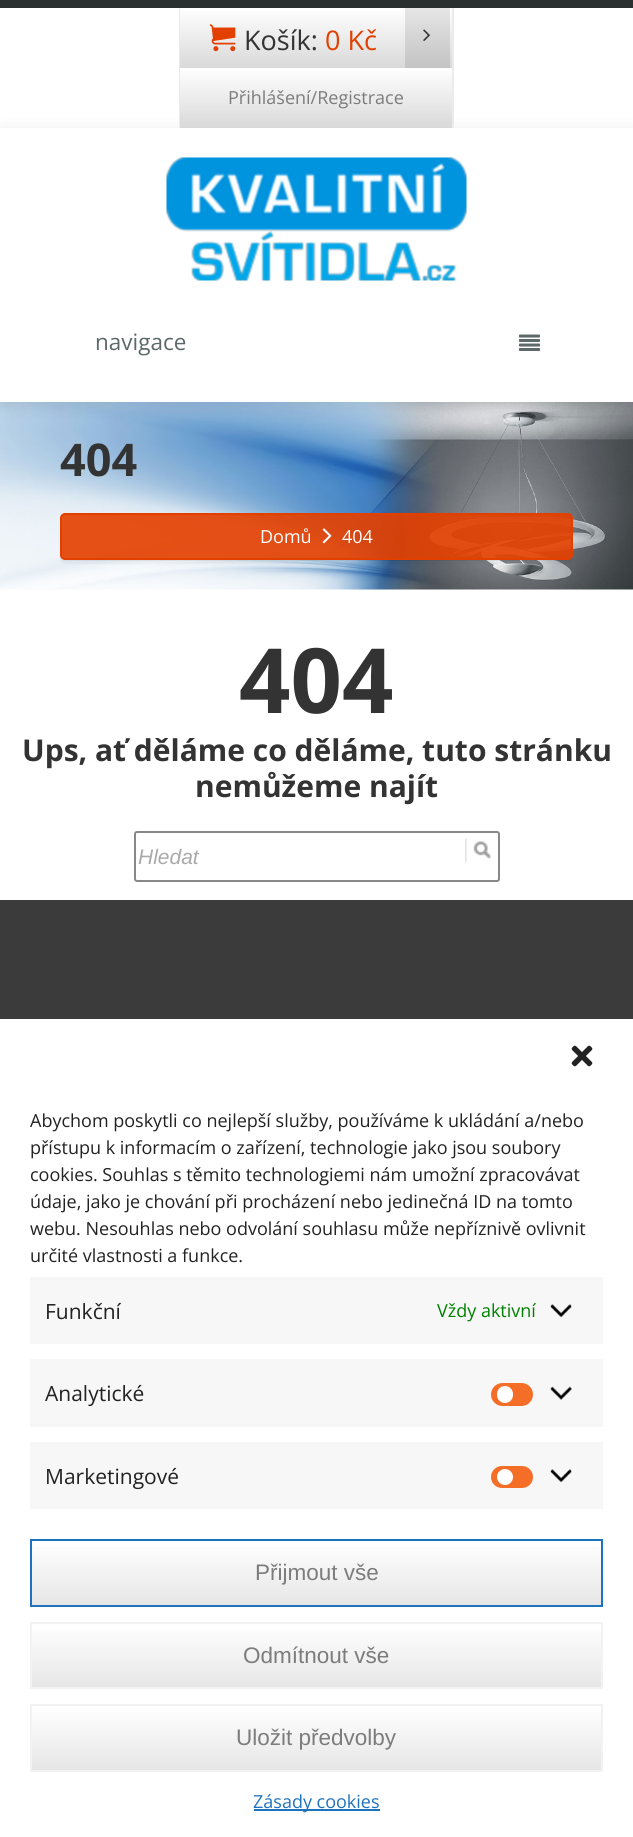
#include <cairo/cairo.h>
#include <math.h>
#include <stddef.h>

typedef struct { double x, y; const char *s; } line_t;
static cairo_t *cr;

static void rgb(unsigned color)
{
	cairo_set_source_rgb(cr, (color >> 16) / 255.0, (color >> 8 & 255) / 255.0, (color & 255) / 255.0);
}

static void rrect(double x, double y, double w, double h, double r)
{
	cairo_new_sub_path(cr);
	cairo_arc(cr, x + w - r, y + h - r, r, 0, M_PI / 2);
	cairo_arc(cr, x + r, y + h - r, r, M_PI / 2, M_PI);
	cairo_arc(cr, x + r, y + r, r, M_PI, 1.5 * M_PI);
	cairo_arc(cr, x + w - r, y + r, r, 1.5 * M_PI, 2 * M_PI);
	cairo_close_path(cr);
}

static void soft_shadow(double x, double y, double w, double h, double r, double blur, double alpha)
{
	cairo_push_group_with_content(cr, CAIRO_CONTENT_ALPHA);
	cairo_set_operator(cr, CAIRO_OPERATOR_SOURCE);
	for (int i = 15; i >= -15 && fmin(w, h) + blur * i / 3 > 0; i -= 2) {
		double e = blur * i / 6;
		cairo_set_source_rgba(cr, 0, 0, 0, alpha * erfc((i - 1) / 8.5) / 2);
		rrect(x - e, y - e, w + 2 * e, h + 2 * e, fmax(0, fmin(r + e + blur * .6, fmin(w, h) / 2 + e)));
		cairo_fill(cr);
	}
	cairo_pattern_t *soft = cairo_pop_group(cr);
	cairo_mask(cr, soft);
	cairo_pattern_destroy(soft);
}

static void image(const char *path, double x, double y, double w, double h)
{
	cairo_surface_t *image = cairo_image_surface_create_from_png(path);
	cairo_save(cr);
	cairo_set_source_surface(cr, image, x, y);
	cairo_rectangle(cr, x, y, w, h);
	cairo_fill(cr);
	cairo_restore(cr);
	cairo_surface_destroy(image);
}

int main(void) {
	cairo_surface_t *surface = cairo_image_surface_create(CAIRO_FORMAT_RGB24, 633, 1837);
	cr = cairo_create(surface);
	cairo_font_options_t *options = cairo_font_options_create();
	cairo_font_options_set_hint_metrics(options, CAIRO_HINT_METRICS_OFF);
	cairo_font_options_set_hint_style(options, CAIRO_HINT_STYLE_NONE);
	cairo_set_font_options(cr, options);
	cairo_set_miter_limit(cr, 4);
	cairo_pattern_t *gradient;
	rgb(0xffffff);
	cairo_paint(cr);
	rgb(0x2a3030);
	cairo_rectangle(cr, 0, 0, 633, 8);
	cairo_fill(cr);
	image("img/5.png", 0, 402, 633, 188);
	cairo_save(cr);
	cairo_set_fill_rule(cr, CAIRO_FILL_RULE_EVEN_ODD);
	cairo_new_path(cr);
	cairo_move_to(cr, 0, 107);
	cairo_line_to(cr, 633, 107);
	cairo_line_to(cr, 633, 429);
	cairo_line_to(cr, 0, 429);
	cairo_close_path(cr);
	cairo_move_to(cr, 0, 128);
	cairo_line_to(cr, 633, 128);
	cairo_line_to(cr, 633, 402);
	cairo_line_to(cr, 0, 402);
	cairo_close_path(cr);
	cairo_clip(cr);
	rgb(0x000000);
	soft_shadow(0, 131, 633, 274, 0, 7.5, 0.1);
	cairo_restore(cr);
	rgb(0xebebeb);
	cairo_rectangle(cr, 452, 8, 2, 120);
	cairo_fill(cr);
	cairo_rectangle(cr, 179, 8, 1, 120);
	cairo_fill(cr);
	gradient = cairo_pattern_create_linear(316, 7.5, 316, 68);
	cairo_pattern_add_color_stop_rgba(gradient, 0, 1, 1, 1, 1);
	cairo_pattern_add_color_stop_rgba(gradient, 1, 0.851, 0.851, 0.851, 1);
	cairo_set_source(cr, gradient);
	cairo_pattern_destroy(gradient);
	cairo_rectangle(cr, 180, 11, 272, 57);
	cairo_fill(cr);
	gradient = cairo_pattern_create_linear(316, 7.5, 316, 68);
	cairo_pattern_add_color_stop_rgba(gradient, 0, 0.902, 0.902, 0.902, 1);
	cairo_pattern_add_color_stop_rgba(gradient, 1, 0.765, 0.765, 0.765, 1);
	cairo_set_source(cr, gradient);
	cairo_pattern_destroy(gradient);
	cairo_rectangle(cr, 405, 8, 45, 60);
	cairo_fill(cr);
	image("img/1.png", 210, 24, 26, 28);
	image("img/2.png", 423, 29, 7, 12);
	gradient = cairo_pattern_create_linear(316, 67, 316, 128);
	cairo_pattern_add_color_stop_rgba(gradient, 0, 1, 1, 1, 1);
	cairo_pattern_add_color_stop_rgba(gradient, 1, 0.851, 0.851, 0.851, 1);
	cairo_set_source(cr, gradient);
	cairo_pattern_destroy(gradient);
	cairo_rectangle(cr, 180, 71, 272, 57);
	cairo_fill(cr);
	image("img/3.png", 166, 157, 301, 124);
	image("img/4.png", 519, 334, 21, 17);
	cairo_set_source_rgba(cr, 0, 0, 0, 0.07);
	cairo_new_path(cr);
	cairo_move_to(cr, 60, 555);
	cairo_line_to(cr, 60, 556);
	cairo_curve_to(cr, 60, 559, 62, 561, 65, 561);
	cairo_line_to(cr, 568, 561);
	cairo_curve_to(cr, 571, 561, 573, 559, 573, 556);
	cairo_line_to(cr, 573, 555);
	cairo_curve_to(cr, 573, 557, 571, 560, 568, 560);
	cairo_line_to(cr, 64, 560);
	cairo_curve_to(cr, 62, 560, 60, 557, 60, 555);
	cairo_close_path(cr);
	cairo_fill(cr);
	cairo_set_source_rgba(cr, 0, 0, 0, 0.03);
	cairo_new_path(cr);
	cairo_move_to(cr, 60, 555);
	cairo_line_to(cr, 60, 559);
	cairo_curve_to(cr, 60, 562, 62, 564, 65, 564);
	cairo_line_to(cr, 568, 564);
	cairo_curve_to(cr, 571, 564, 573, 562, 573, 559);
	cairo_line_to(cr, 573, 555);
	cairo_curve_to(cr, 573, 557, 571, 560, 568, 560);
	cairo_line_to(cr, 64, 560);
	cairo_curve_to(cr, 62, 560, 60, 557, 60, 555);
	cairo_close_path(cr);
	cairo_fill(cr);
	cairo_set_source_rgba(cr, 0.89, 0.251, 0, 0.91);
	rrect(61, 514, 511, 45, 4);
	cairo_fill_preserve(cr);
	rgb(0xe34000);
	cairo_stroke(cr);
	image("img/6.png", 322, 528, 10, 16);
	rrect(135, 832, 364, 49, 2);
	rgb(0x888888);
	cairo_stroke(cr);
	image("img/7.png", 465, 838, 26, 25);
	rgb(0x3b3b3b);
	cairo_rectangle(cr, 0, 900, 633, 119);
	cairo_fill(cr);
	image("img/8.png", 571, 1045, 22, 22);
	rgb(0xf7f7f7);
	cairo_rectangle(cr, 30, 1277, 573, 67);
	cairo_fill(cr);
	image("img/9.png", 550, 1304, 22, 14);
	cairo_rectangle(cr, 30, 1359, 573, 68);
	cairo_fill(cr);
	rgb(0xf56e28);
	rrect(491, 1383, 42, 23, 11.5);
	cairo_fill(cr);
	rgb(0xffffff);
	rrect(497, 1386, 16, 17, 8);
	cairo_fill(cr);
	image("img/10.png", 550, 1386, 22, 14);
	rgb(0xf7f7f7);
	cairo_rectangle(cr, 30, 1442, 573, 67);
	cairo_fill(cr);
	rgb(0xf56e28);
	rrect(491, 1466, 42, 22, 11);
	cairo_fill(cr);
	rgb(0xffffff);
	cairo_arc(cr, 505, 1477, 8, 0, 2 * M_PI);
	cairo_fill(cr);
	image("img/9.png", 550, 1469, 22, 14);
	gradient = cairo_pattern_create_linear(317, 1541, 317, 1605);
	cairo_pattern_add_color_stop_rgba(gradient, 0, 1, 1, 1, 1);
	cairo_pattern_add_color_stop_rgba(gradient, 1, 0.902, 0.902, 0.902, 1);
	cairo_set_source(cr, gradient);
	cairo_pattern_destroy(gradient);
	cairo_rectangle(cr, 32, 1547, 569, 58);
	cairo_fill(cr);
	cairo_rectangle(cr, 31, 1540, 571, 66);
	rgb(0x1e73be);
	cairo_stroke(cr);
	gradient = cairo_pattern_create_linear(317, 1623, 317, 1688);
	cairo_pattern_add_color_stop_rgba(gradient, 0, 1, 1, 1, 1);
	cairo_pattern_add_color_stop_rgba(gradient, 1, 0.902, 0.902, 0.902, 1);
	cairo_set_source(cr, gradient);
	cairo_pattern_destroy(gradient);
	cairo_rectangle(cr, 32, 1630, 569, 57);
	cairo_fill(cr);
	cairo_rectangle(cr, 31, 1623, 571, 65);
	rgb(0xf2f2f2);
	cairo_stroke(cr);
	gradient = cairo_pattern_create_linear(317, 1706, 317, 1770);
	cairo_pattern_add_color_stop_rgba(gradient, 0, 1, 1, 1, 1);
	cairo_pattern_add_color_stop_rgba(gradient, 1, 0.902, 0.902, 0.902, 1);
	cairo_set_source(cr, gradient);
	cairo_pattern_destroy(gradient);
	cairo_rectangle(cr, 32, 1712, 569, 58);
	cairo_fill(cr);
	cairo_rectangle(cr, 31, 1705, 571, 66);
	rgb(0xf2f2f2);
	cairo_stroke(cr);
	rgb(0x1e73be);
	cairo_rectangle(cr, 254, 1809, 126, 2);
	cairo_fill(cr);
	cairo_select_font_face(cr, "Open Sans", CAIRO_FONT_SLANT_NORMAL, CAIRO_FONT_WEIGHT_NORMAL);
	cairo_set_font_size(cr, 27);
	rgb(0x333333);
	cairo_move_to(cr, 244, 50);
	cairo_show_text(cr, "Košík:");
	rgb(0xe34000);
	cairo_move_to(cr, 325, 50);
	cairo_show_text(cr, "0 Kč");
	cairo_set_font_size(cr, 18);
	rgb(0x7c7c7c);
	cairo_move_to(cr, 228, 104);
	cairo_show_text(cr, "Přihlášení/Registrace");
	cairo_set_font_size(cr, 22.5);
	rgb(0x5c6869);
	cairo_move_to(cr, 95, 350);
	cairo_show_text(cr, "navigace");
	cairo_select_font_face(cr, "Open Sans", CAIRO_FONT_SLANT_NORMAL, CAIRO_FONT_WEIGHT_BOLD);
	cairo_set_font_size(cr, 45);
	rgb(0x333333);
	cairo_move_to(cr, 60, 476);
	cairo_show_text(cr, "404");
	cairo_select_font_face(cr, "Open Sans", CAIRO_FONT_SLANT_NORMAL, CAIRO_FONT_WEIGHT_NORMAL);
	cairo_set_font_size(cr, 18);
	rgb(0xffffff);
	cairo_move_to(cr, 260, 543);
	cairo_show_text(cr, "Domů");
	cairo_move_to(cr, 342, 543);
	cairo_show_text(cr, "404");
	cairo_select_font_face(cr, "Open Sans", CAIRO_FONT_SLANT_NORMAL, CAIRO_FONT_WEIGHT_BOLD);
	cairo_set_font_size(cr, 90);
	rgb(0x333333);
	cairo_move_to(cr, 239, 713);
	cairo_show_text(cr, "404");
	cairo_set_font_size(cr, 30);
	cairo_move_to(cr, 22, 761);
	cairo_show_text(cr, "Ups, ať děláme co děláme, tuto stránku");
	cairo_move_to(cr, 195, 797);
	cairo_show_text(cr, "nemůžeme najít");
	cairo_select_font_face(cr, "Liberation Sans", CAIRO_FONT_SLANT_ITALIC, CAIRO_FONT_WEIGHT_NORMAL);
	cairo_set_font_size(cr, 21);
	rgb(0xaaaaaa);
	cairo_move_to(cr, 138, 864);
	cairo_show_text(cr, "Hledat");
	cairo_select_font_face(cr, "Open Sans", CAIRO_FONT_SLANT_NORMAL, CAIRO_FONT_WEIGHT_NORMAL);
	cairo_set_font_size(cr, 18);
	rgb(0x222222);
	{
		static const line_t items[] = {
			{30, 1127, "Abychom poskytli co nejlepší služby, používáme k ukládání a/nebo"},
			{30, 1154, "přístupu k informacím o zařízení, technologie jako jsou soubory"},
			{30, 1181, "cookies. Souhlas s těmito technologiemi nám umožní zpracovávat"},
			{30, 1208, "údaje, jako je chování při procházení nebo jedinečná ID na tomto"},
			{30, 1235, "webu. Nesouhlas nebo odvolání souhlasu může nepříznivě ovlivnit"},
			{30, 1262, "určité vlastnosti a funkce."},
		};
		for (size_t i = 0; i < sizeof items / sizeof *items; i++) {
			cairo_move_to(cr, items[i].x, items[i].y);
			cairo_show_text(cr, items[i].s);
		}
	}
	cairo_set_font_size(cr, 21);
	cairo_move_to(cr, 45, 1319);
	cairo_show_text(cr, "Funkční");
	cairo_set_font_size(cr, 18);
	rgb(0x008000);
	cairo_move_to(cr, 437, 1317);
	cairo_show_text(cr, "Vždy aktivní");
	cairo_set_font_size(cr, 21);
	rgb(0x222222);
	cairo_move_to(cr, 45, 1401);
	cairo_show_text(cr, "Analytické");
	cairo_move_to(cr, 45, 1484);
	cairo_show_text(cr, "Marketingové");
	cairo_select_font_face(cr, "Liberation Sans", CAIRO_FONT_SLANT_NORMAL, CAIRO_FONT_WEIGHT_NORMAL);
	cairo_set_font_size(cr, 22.5);
	rgb(0x7c7c7c);
	{
		static const line_t items[] = {
			{255, 1580, "Přijmout vše"},
			{243, 1663, "Odmítnout vše"},
			{236, 1745, "Uložit předvolby"},
		};
		for (size_t i = 0; i < sizeof items / sizeof *items; i++) {
			cairo_move_to(cr, items[i].x, items[i].y);
			cairo_show_text(cr, items[i].s);
		}
	}
	cairo_select_font_face(cr, "Open Sans", CAIRO_FONT_SLANT_NORMAL, CAIRO_FONT_WEIGHT_NORMAL);
	cairo_set_font_size(cr, 18);
	rgb(0x1e73be);
	cairo_move_to(cr, 253, 1808);
	cairo_show_text(cr, "Zásady cookies");
	cairo_surface_write_to_png(surface, "page.png");
	cairo_font_options_destroy(options);
	cairo_destroy(cr);
	cairo_surface_destroy(surface);
	return 0;
}
